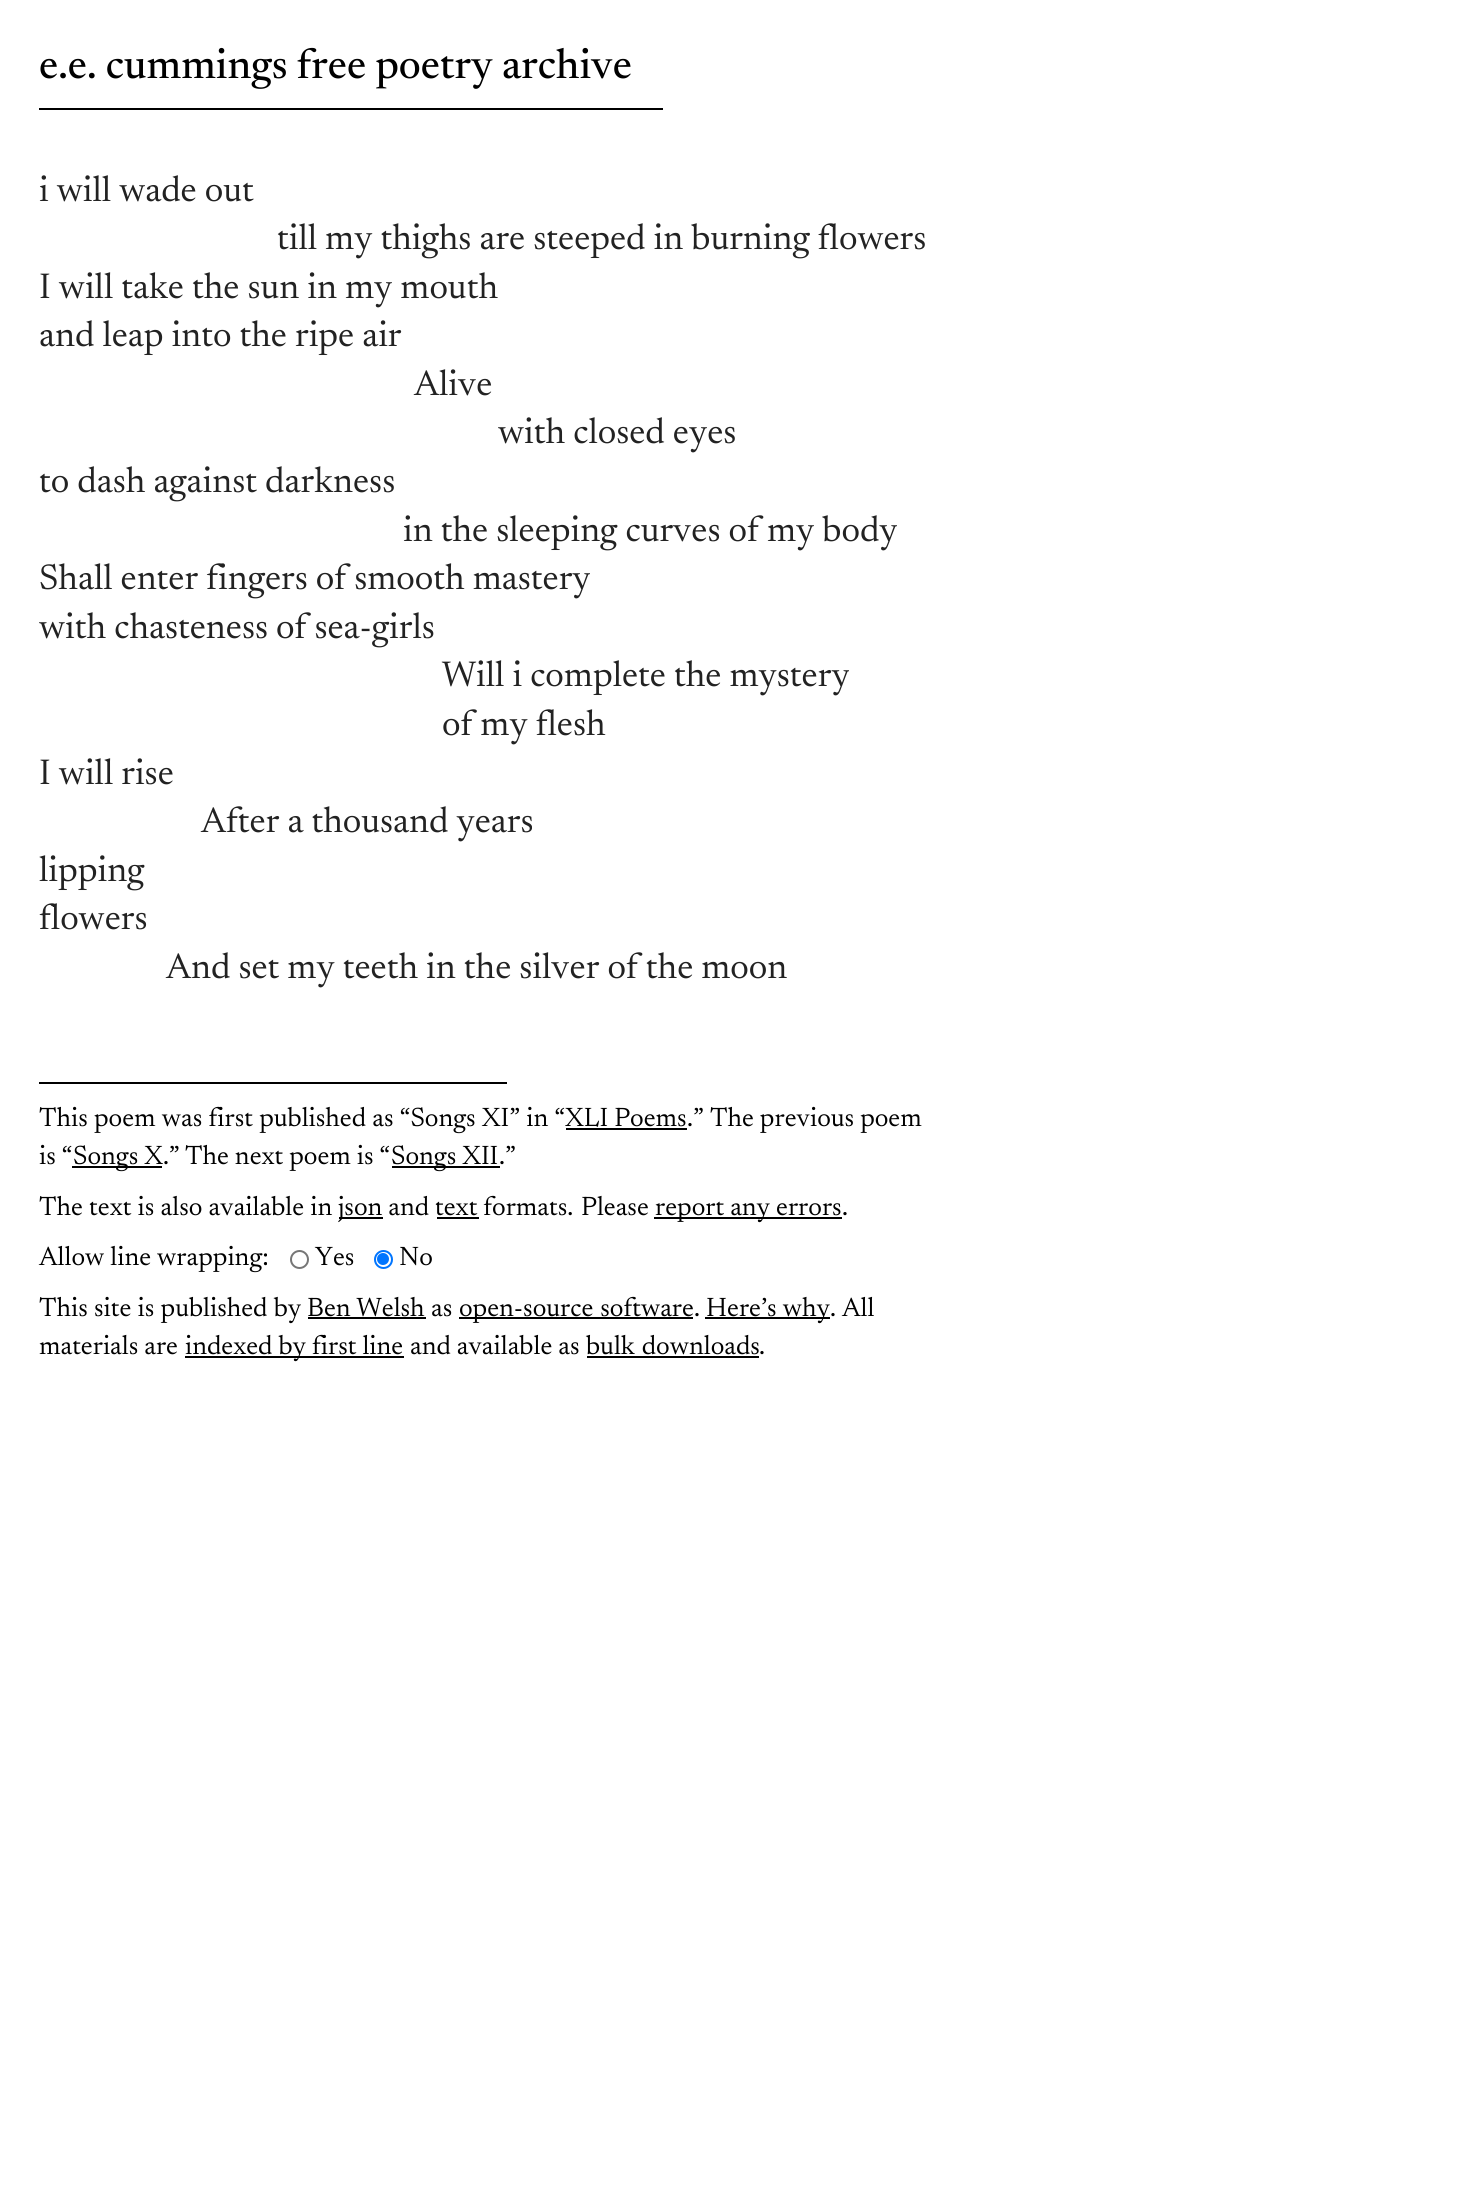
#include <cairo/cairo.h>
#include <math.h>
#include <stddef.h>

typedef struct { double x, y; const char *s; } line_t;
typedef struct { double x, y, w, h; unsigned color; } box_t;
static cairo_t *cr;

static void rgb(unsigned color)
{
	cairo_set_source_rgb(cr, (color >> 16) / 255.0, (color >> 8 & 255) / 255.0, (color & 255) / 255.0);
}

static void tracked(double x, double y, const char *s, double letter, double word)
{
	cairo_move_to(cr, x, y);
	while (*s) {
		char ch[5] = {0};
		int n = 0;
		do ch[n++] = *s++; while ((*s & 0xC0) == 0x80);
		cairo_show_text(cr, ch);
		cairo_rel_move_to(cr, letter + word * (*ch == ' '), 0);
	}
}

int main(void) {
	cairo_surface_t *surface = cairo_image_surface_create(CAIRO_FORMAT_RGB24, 1457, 2211);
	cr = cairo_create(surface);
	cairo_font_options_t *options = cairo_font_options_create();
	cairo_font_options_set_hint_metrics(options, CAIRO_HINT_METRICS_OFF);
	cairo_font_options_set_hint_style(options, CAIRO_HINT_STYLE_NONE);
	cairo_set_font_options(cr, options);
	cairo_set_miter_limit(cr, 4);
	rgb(0xffffff);
	cairo_paint(cr);
	{
		static const box_t items[] = {
			{39, 108, 624, 2, 0x000000},
			{39, 1082, 468, 2, 0x000000},
			{566, 1128, 121, 2, 0x000000},
			{72, 1166, 90, 2, 0x000000},
			{392, 1166, 108, 2, 0x000000},
			{339, 1217, 44, 2, 0x000000},
			{654, 1217, 188, 2, 0x000000},
			{437, 1217, 42, 2, 0x000000},
		};
		for (size_t i = 0; i < sizeof items / sizeof *items; i++) {
			rgb(items[i].color);
			cairo_rectangle(cr, items[i].x, items[i].y, items[i].w, items[i].h);
			cairo_fill(cr);
		}
	}
	cairo_arc(cr, 299.5, 1259.5, 8.5, 0, 2 * M_PI);
	rgb(0x767676);
	cairo_stroke(cr);
	cairo_arc(cr, 383.5, 1259.5, 8.5, 0, 2 * M_PI);
	rgb(0x0075ff);
	cairo_stroke(cr);
	cairo_arc(cr, 383, 1259, 6, 0, 2 * M_PI);
	cairo_fill(cr);
	{
		static const box_t items[] = {
			{308, 1317, 118, 2, 0x000000},
			{459, 1317, 234, 2, 0x000000},
			{705, 1317, 125, 2, 0x000000},
			{185, 1356, 219, 2, 0x000000},
			{587, 1356, 172, 2, 0x000000},
		};
		for (size_t i = 0; i < sizeof items / sizeof *items; i++) {
			rgb(items[i].color);
			cairo_rectangle(cr, items[i].x, items[i].y, items[i].w, items[i].h);
			cairo_fill(cr);
		}
	}
	cairo_select_font_face(cr, "Newsreader Medium", CAIRO_FONT_SLANT_NORMAL, CAIRO_FONT_WEIGHT_NORMAL);
	cairo_set_font_size(cr, 42);
	cairo_move_to(cr, 39, 78);
	cairo_show_text(cr, "e.e. cummings free poetry archive");
	cairo_select_font_face(cr, "Newsreader", CAIRO_FONT_SLANT_NORMAL, CAIRO_FONT_WEIGHT_NORMAL);
	cairo_set_font_size(cr, 36);
	rgb(0x222222);
	{
		static const line_t items[] = {
			{39, 201, "i will wade out"},
			{277, 249, "till my thighs are steeped in burning flowers"},
			{39, 298, "I will take the sun in my mouth"},
			{39, 346, "and leap into the ripe air"},
			{414, 395, "Alive"},
			{498, 443, "with closed eyes"},
			{39, 492, "to dash against darkness"},
			{403, 541, "in the sleeping curves of my body"},
			{39, 589, "Shall enter fingers of smooth mastery"},
			{39, 638, "with chasteness of sea-girls"},
			{442, 686, "Will i complete the mystery"},
			{442, 735, "of my flesh"},
			{39, 784, "I will rise"},
			{201, 832, "After a thousand years"},
			{39, 881, "lipping"},
			{39, 929, "flowers"},
			{166, 978, "And set my teeth in the silver of the moon"},
		};
		for (size_t i = 0; i < sizeof items / sizeof *items; i++) {
			cairo_move_to(cr, items[i].x, items[i].y);
			cairo_show_text(cr, items[i].s);
		}
	}
	cairo_select_font_face(cr, "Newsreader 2", CAIRO_FONT_SLANT_NORMAL, CAIRO_FONT_WEIGHT_NORMAL);
	cairo_set_font_size(cr, 27);
	rgb(0x000000);
	tracked(39, 1126, "This poem was first published as “Songs XI” in “", 0, 0.25);
	{
		static const line_t items[] = {
			{565, 1126, "XLI Poems"},
			{687, 1126, ".”"},
			{710, 1126, "The previous poem"},
			{39, 1164, "is “"},
			{73, 1164, "Songs X.”"},
			{185, 1164, "The next poem is “"},
			{391, 1164, "Songs XII"},
			{499, 1164, ".”"},
		};
		for (size_t i = 0; i < sizeof items / sizeof *items; i++) {
			cairo_move_to(cr, items[i].x, items[i].y);
			cairo_show_text(cr, items[i].s);
		}
	}
	tracked(39, 1215, "The text is also available in", 0, 0.25);
	{
		static const line_t items[] = {
			{338, 1215, "json and text formats."},
			{581, 1215, "Please"},
			{655, 1215, "report any errors"},
			{842, 1215, "."},
			{39, 1265, "Allow line wrapping:"},
			{315, 1265, "Yes"},
			{399, 1265, "No"},
		};
		for (size_t i = 0; i < sizeof items / sizeof *items; i++) {
			cairo_move_to(cr, items[i].x, items[i].y);
			cairo_show_text(cr, items[i].s);
		}
	}
	tracked(39, 1316, "This site is published by", 0, 0.25);
	cairo_move_to(cr, 307, 1316);
	cairo_show_text(cr, "Ben Welsh");
	cairo_move_to(cr, 431, 1316);
	cairo_show_text(cr, "as");
	tracked(459, 1316, "open-source software", 0, 1);
	{
		static const line_t items[] = {
			{694, 1316, "."},
			{706, 1316, "Here’s why"},
			{830, 1316, ". All"},
			{39, 1354, "materials are"},
			{185, 1354, "indexed by first line"},
			{410, 1354, "and available as"},
		};
		for (size_t i = 0; i < sizeof items / sizeof *items; i++) {
			cairo_move_to(cr, items[i].x, items[i].y);
			cairo_show_text(cr, items[i].s);
		}
	}
	tracked(586, 1354, "bulk downloads", 0, 1);
	cairo_move_to(cr, 759, 1354);
	cairo_show_text(cr, ".");
	cairo_surface_write_to_png(surface, "page.png");
	cairo_font_options_destroy(options);
	cairo_destroy(cr);
	cairo_surface_destroy(surface);
	return 0;
}
